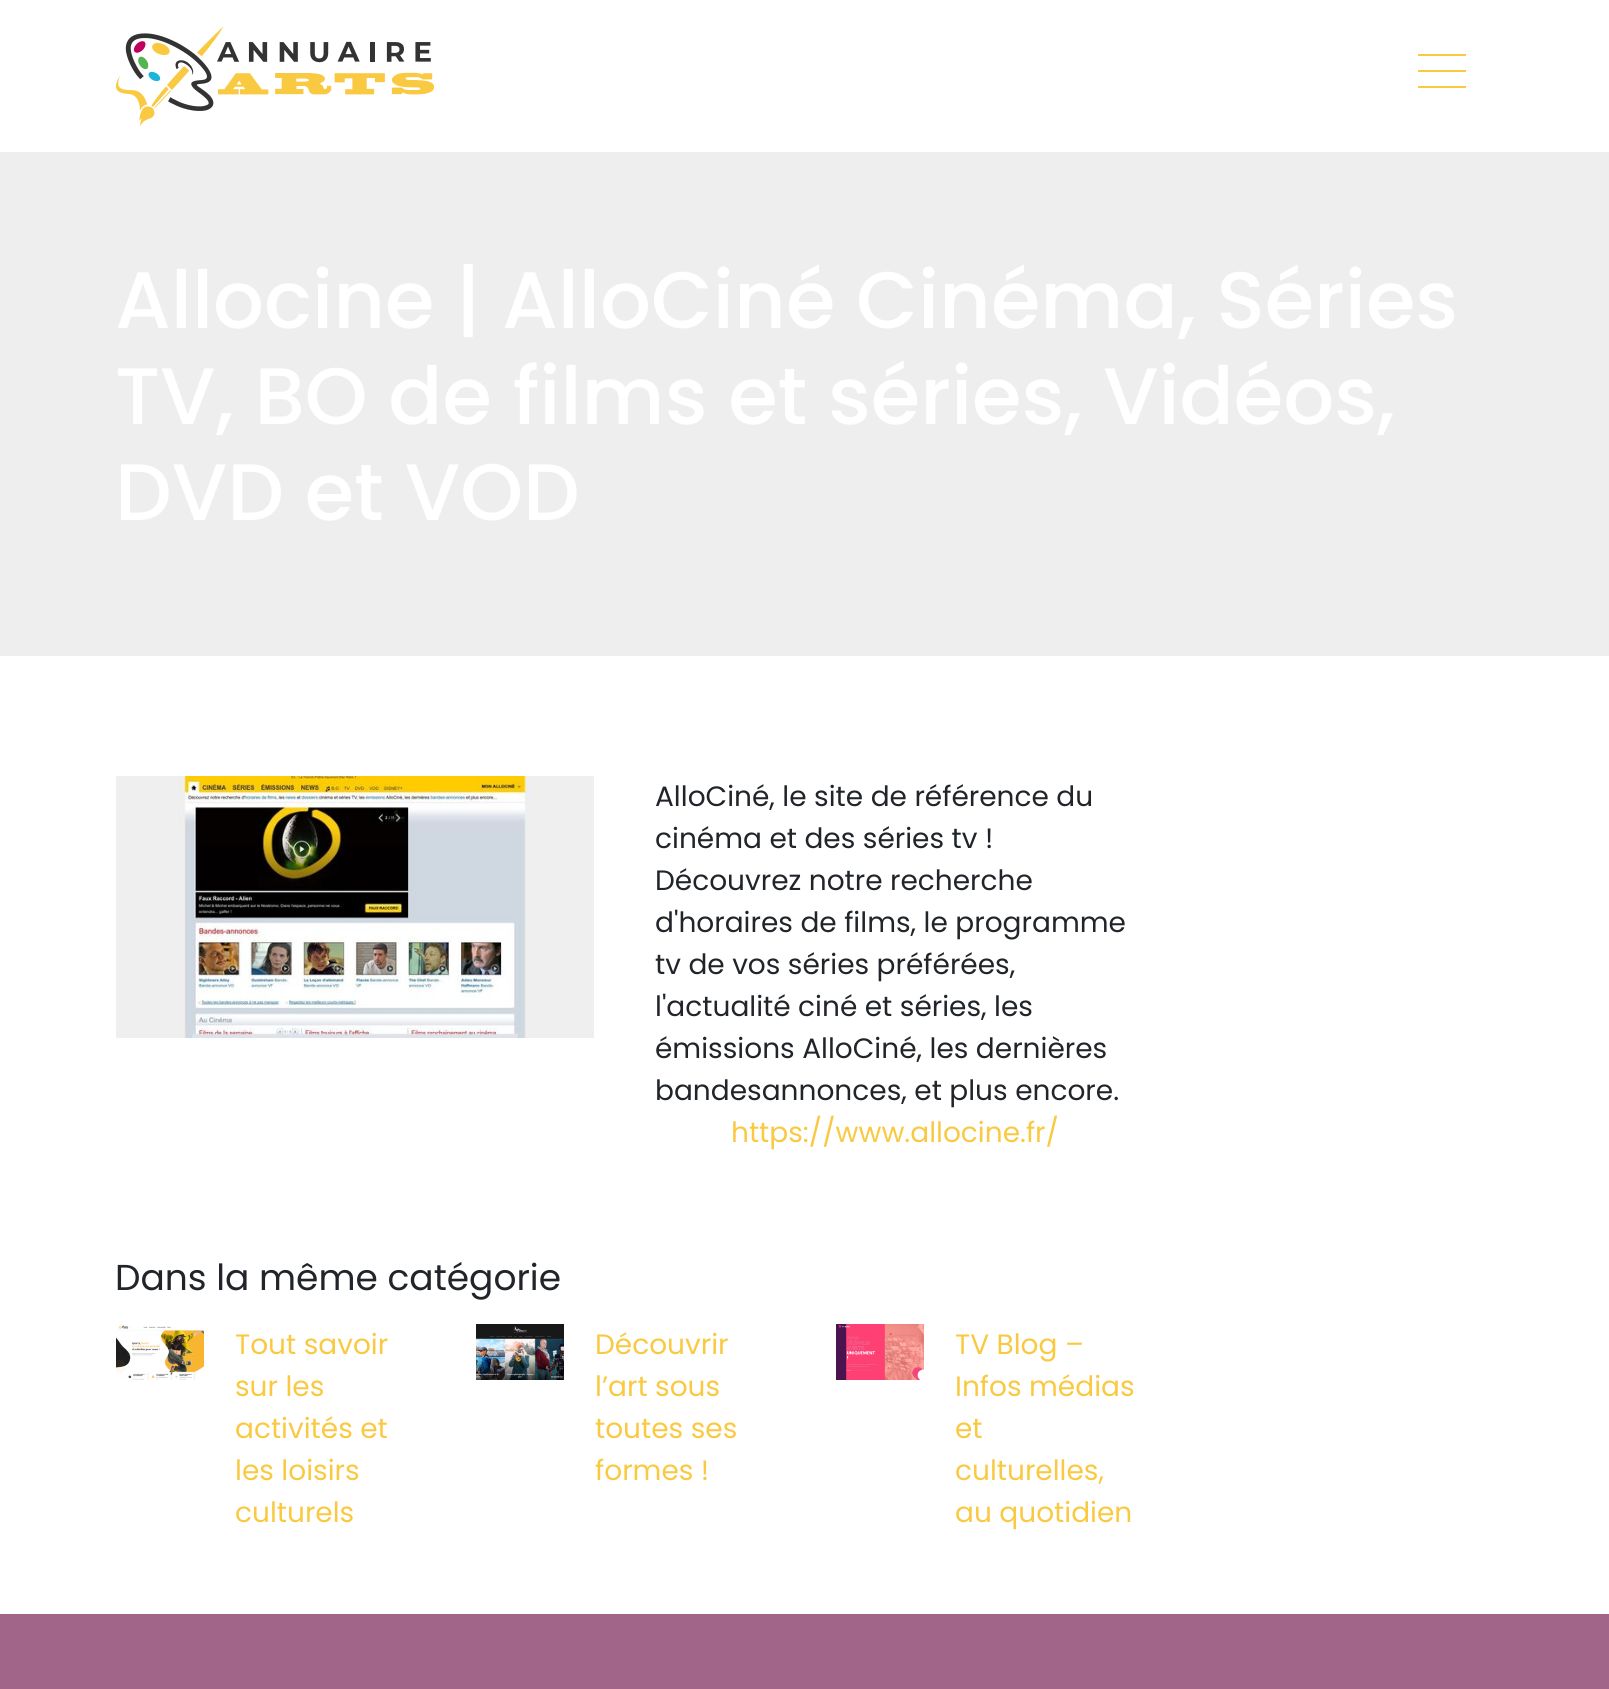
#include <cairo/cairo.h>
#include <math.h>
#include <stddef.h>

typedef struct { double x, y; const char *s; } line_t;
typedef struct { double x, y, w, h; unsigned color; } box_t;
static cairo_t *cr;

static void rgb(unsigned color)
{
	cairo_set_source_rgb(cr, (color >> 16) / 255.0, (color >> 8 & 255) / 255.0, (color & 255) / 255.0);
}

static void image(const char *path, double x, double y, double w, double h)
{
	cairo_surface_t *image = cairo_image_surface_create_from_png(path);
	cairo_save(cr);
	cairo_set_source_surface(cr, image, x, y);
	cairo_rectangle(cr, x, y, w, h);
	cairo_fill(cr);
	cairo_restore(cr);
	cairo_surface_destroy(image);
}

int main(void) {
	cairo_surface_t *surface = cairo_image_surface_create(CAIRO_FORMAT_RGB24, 1609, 1689);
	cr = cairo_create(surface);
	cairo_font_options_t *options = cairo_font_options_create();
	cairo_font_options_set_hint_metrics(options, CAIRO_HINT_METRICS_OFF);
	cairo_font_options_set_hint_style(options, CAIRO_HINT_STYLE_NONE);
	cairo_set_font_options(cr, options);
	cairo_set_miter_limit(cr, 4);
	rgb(0xffffff);
	cairo_paint(cr);
	image("img/1.png", 116, 26, 318, 100);
	{
		static const box_t items[] = {
			{1418, 54, 48, 2, 0xfac942},
			{1418, 70, 48, 2, 0xfac942},
			{1418, 86, 48, 2, 0xfac942},
			{0, 152, 1609, 504, 0xeeeeee},
		};
		for (size_t i = 0; i < sizeof items / sizeof *items; i++) {
			rgb(items[i].color);
			cairo_rectangle(cr, items[i].x, items[i].y, items[i].w, items[i].h);
			cairo_fill(cr);
		}
	}
	image("img/2.png", 116, 776, 478, 262);
	image("img/3.png", 116, 1325, 88, 55);
	image("img/4.png", 476, 1324, 88, 56);
	image("img/5.png", 836, 1324, 88, 56);
	rgb(0xa06588);
	cairo_rectangle(cr, 0, 1614, 1609, 75);
	cairo_fill(cr);
	cairo_select_font_face(cr, "Poppins Medium", CAIRO_FONT_SLANT_NORMAL, CAIRO_FONT_WEIGHT_NORMAL);
	cairo_set_font_size(cr, 80);
	rgb(0xffffff);
	{
		static const line_t items[] = {
			{115, 328, "Allocine | AlloCiné Cinéma, Séries"},
			{115, 424, "TV, BO de films et séries, Vidéos,"},
			{115, 520, "DVD et VOD"},
		};
		for (size_t i = 0; i < sizeof items / sizeof *items; i++) {
			cairo_move_to(cr, items[i].x, items[i].y);
			cairo_show_text(cr, items[i].s);
		}
	}
	cairo_select_font_face(cr, "Poppins", CAIRO_FONT_SLANT_NORMAL, CAIRO_FONT_WEIGHT_NORMAL);
	cairo_set_font_size(cr, 28);
	rgb(0x212529);
	{
		static const line_t items[] = {
			{655, 806, "AlloCiné, le site de référence du"},
			{655, 848, "cinéma et des séries tv !"},
			{655, 890, "Découvrez notre recherche"},
			{655, 932, "d'horaires de films, le programme"},
			{655, 974, "tv de vos séries préférées,"},
			{655, 1016, "l'actualité ciné et séries, les"},
			{655, 1058, "émissions AlloCiné, les dernières"},
			{655, 1100, "bandesannonces, et plus encore."},
		};
		for (size_t i = 0; i < sizeof items / sizeof *items; i++) {
			cairo_move_to(cr, items[i].x, items[i].y);
			cairo_show_text(cr, items[i].s);
		}
	}
	rgb(0xfac942);
	cairo_move_to(cr, 731, 1142);
	cairo_show_text(cr, "https://www.allocine.fr/");
	cairo_set_font_size(cr, 36);
	rgb(0x212529);
	cairo_move_to(cr, 115, 1290);
	cairo_show_text(cr, "Dans la même catégorie");
	cairo_set_font_size(cr, 28);
	rgb(0xfac942);
	{
		static const line_t items[] = {
			{235, 1354, "Tout savoir"},
			{235, 1396, "sur les"},
			{235, 1438, "activités et"},
			{235, 1480, "les loisirs"},
			{235, 1522, "culturels"},
			{595, 1354, "Découvrir"},
			{595, 1396, "l’art sous"},
			{595, 1438, "toutes ses"},
			{595, 1480, "formes !"},
			{955, 1354, "TV Blog –"},
			{955, 1396, "Infos médias"},
			{955, 1438, "et"},
			{955, 1480, "culturelles,"},
			{955, 1522, "au quotidien"},
		};
		for (size_t i = 0; i < sizeof items / sizeof *items; i++) {
			cairo_move_to(cr, items[i].x, items[i].y);
			cairo_show_text(cr, items[i].s);
		}
	}
	cairo_surface_write_to_png(surface, "page.png");
	cairo_font_options_destroy(options);
	cairo_destroy(cr);
	cairo_surface_destroy(surface);
	return 0;
}
